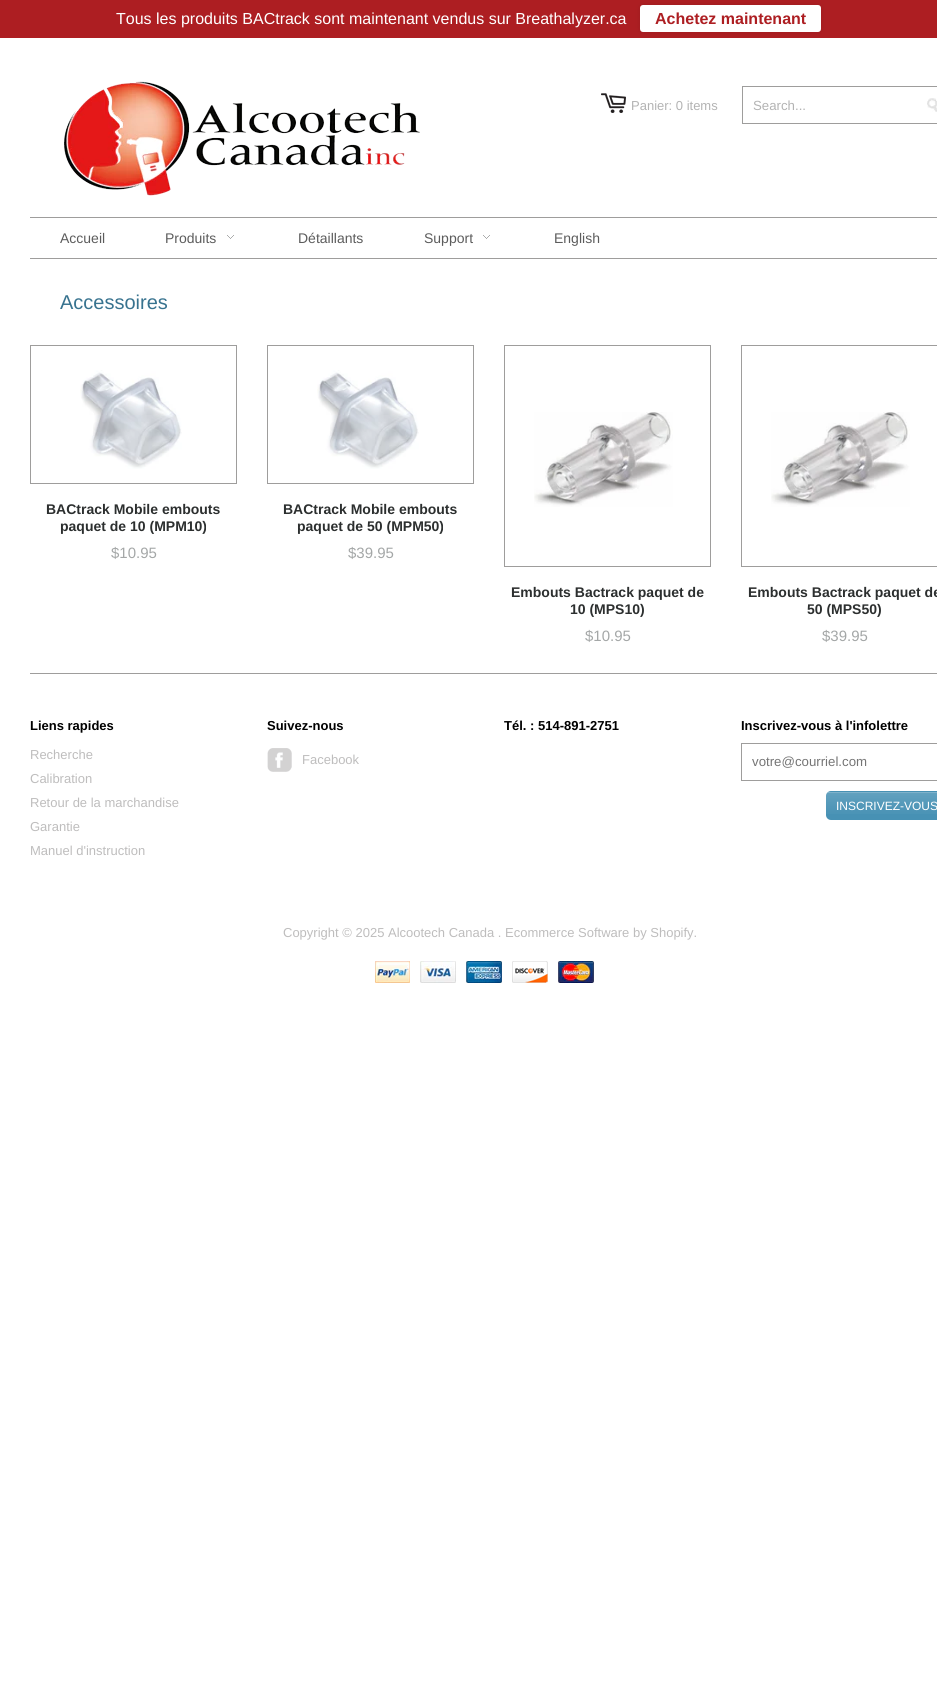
#include <cairo/cairo.h>
#include <math.h>
#include <stddef.h>

typedef struct { double x, y; const char *s; } line_t;
static cairo_t *cr;

static void rgb(unsigned color)
{
	cairo_set_source_rgb(cr, (color >> 16) / 255.0, (color >> 8 & 255) / 255.0, (color & 255) / 255.0);
}

static void rrect(double x, double y, double w, double h, double r)
{
	cairo_new_sub_path(cr);
	cairo_arc(cr, x + w - r, y + h - r, r, 0, M_PI / 2);
	cairo_arc(cr, x + r, y + h - r, r, M_PI / 2, M_PI);
	cairo_arc(cr, x + r, y + r, r, M_PI, 1.5 * M_PI);
	cairo_arc(cr, x + w - r, y + r, r, 1.5 * M_PI, 2 * M_PI);
	cairo_close_path(cr);
}

static void soft_shadow(double x, double y, double w, double h, double r, double blur, double alpha)
{
	cairo_push_group_with_content(cr, CAIRO_CONTENT_ALPHA);
	cairo_set_operator(cr, CAIRO_OPERATOR_SOURCE);
	for (int i = 15; i >= -15 && fmin(w, h) + blur * i / 3 > 0; i -= 2) {
		double e = blur * i / 6;
		cairo_set_source_rgba(cr, 0, 0, 0, alpha * erfc((i - 1) / 8.5) / 2);
		rrect(x - e, y - e, w + 2 * e, h + 2 * e, fmax(0, fmin(r + e + blur * .6, fmin(w, h) / 2 + e)));
		cairo_fill(cr);
	}
	cairo_pattern_t *soft = cairo_pop_group(cr);
	cairo_mask(cr, soft);
	cairo_pattern_destroy(soft);
}

static void image(const char *path, double x, double y, double w, double h)
{
	cairo_surface_t *image = cairo_image_surface_create_from_png(path);
	cairo_save(cr);
	cairo_set_source_surface(cr, image, x, y);
	cairo_rectangle(cr, x, y, w, h);
	cairo_fill(cr);
	cairo_restore(cr);
	cairo_surface_destroy(image);
}

int main(void) {
	cairo_surface_t *surface = cairo_image_surface_create(CAIRO_FORMAT_RGB24, 937, 1692);
	cr = cairo_create(surface);
	cairo_font_options_t *options = cairo_font_options_create();
	cairo_font_options_set_hint_metrics(options, CAIRO_HINT_METRICS_OFF);
	cairo_font_options_set_hint_style(options, CAIRO_HINT_STYLE_NONE);
	cairo_set_font_options(cr, options);
	cairo_set_miter_limit(cr, 4);
	rgb(0xffffff);
	cairo_paint(cr);
	rgb(0xad1e22);
	cairo_rectangle(cr, 0, 0, 937, 38);
	cairo_fill(cr);
	rgb(0x000000);
	soft_shadow(640, 5, 181, 27, 3, 2.5, 0.1);
	rgb(0xffffff);
	rrect(640, 5, 181, 27, 3);
	cairo_fill(cr);
	image("img/1.png", 64, 81, 356, 115);
	image("img/2.png", 601, 93, 25, 20);
	cairo_rectangle(cr, 742.5, 86.5, 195, 37);
	rgb(0x9e9d9c);
	cairo_set_line_width(cr, 1);
	cairo_stroke(cr);
	image("img/3.png", 927, 98, 10, 14);
	cairo_rectangle(cr, 30, 217, 907, 1);
	cairo_fill(cr);
	cairo_rectangle(cr, 30, 258, 907, 1);
	cairo_fill(cr);
	image("img/4.png", 227, 235, 7, 4);
	image("img/4.png", 483, 235, 7, 4);
	cairo_rectangle(cr, 30.5, 345.5, 206, 138);
	cairo_stroke(cr);
	image("img/5.png", 80, 370, 102, 99);
	cairo_rectangle(cr, 267.5, 345.5, 206, 138);
	cairo_stroke(cr);
	image("img/5.png", 317, 370, 102, 99);
	cairo_rectangle(cr, 504.5, 345.5, 206, 221);
	cairo_stroke(cr);
	image("img/6.png", 534, 412, 139, 95);
	cairo_rectangle(cr, 741.5, 345.5, 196, 221);
	cairo_stroke(cr);
	image("img/6.png", 771, 412, 139, 95);
	cairo_rectangle(cr, 30, 673, 907, 1);
	cairo_fill(cr);
	image("img/7.png", 267, 748, 25, 24);
	cairo_rectangle(cr, 741.5, 743.5, 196, 37);
	cairo_stroke(cr);
	rgb(0x4791b4);
	rrect(826, 791, 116, 29, 5);
	cairo_fill(cr);
	image("img/8.png", 826, 792, 111, 22);
	image("img/9.png", 375, 961, 35, 22);
	image("img/10.png", 420, 961, 36, 22);
	image("img/11.png", 466, 961, 36, 22);
	image("img/12.png", 512, 961, 36, 22);
	image("img/13.png", 558, 961, 36, 22);
	cairo_select_font_face(cr, "Liberation Sans", CAIRO_FONT_SLANT_NORMAL, CAIRO_FONT_WEIGHT_NORMAL);
	cairo_set_font_size(cr, 16);
	rgb(0xffffff);
	cairo_move_to(cr, 116, 24);
	cairo_show_text(cr, "Tous les produits BACtrack sont maintenant vendus sur Breathalyzer.ca");
	cairo_select_font_face(cr, "Liberation Sans", CAIRO_FONT_SLANT_NORMAL, CAIRO_FONT_WEIGHT_BOLD);
	rgb(0xad1e22);
	cairo_move_to(cr, 655, 24);
	cairo_show_text(cr, "Achetez maintenant");
	cairo_select_font_face(cr, "Liberation Sans", CAIRO_FONT_SLANT_NORMAL, CAIRO_FONT_WEIGHT_NORMAL);
	cairo_set_font_size(cr, 13);
	rgb(0xb3b3b3);
	cairo_move_to(cr, 631, 110);
	cairo_show_text(cr, "Panier: 0 items");
	cairo_set_font_size(cr, 13.25);
	cairo_move_to(cr, 753, 110);
	cairo_show_text(cr, "Search...");
	cairo_set_font_size(cr, 14);
	rgb(0x5c5c5c);
	{
		static const line_t items[] = {
			{60, 243, "Accueil"},
			{165, 243, "Produits"},
			{298, 243, "Détaillants"},
			{424, 243, "Support"},
			{554, 243, "English"},
		};
		for (size_t i = 0; i < sizeof items / sizeof *items; i++) {
			cairo_move_to(cr, items[i].x, items[i].y);
			cairo_show_text(cr, items[i].s);
		}
	}
	cairo_set_font_size(cr, 20);
	rgb(0x38738f);
	cairo_move_to(cr, 60, 309);
	cairo_show_text(cr, "Accessoires");
	cairo_select_font_face(cr, "Liberation Sans", CAIRO_FONT_SLANT_NORMAL, CAIRO_FONT_WEIGHT_BOLD);
	cairo_set_font_size(cr, 14);
	rgb(0x2c2f2f);
	cairo_move_to(cr, 46, 514);
	cairo_show_text(cr, "BACtrack Mobile embouts");
	cairo_move_to(cr, 60, 531);
	cairo_show_text(cr, "paquet de 10 (MPM10)");
	cairo_select_font_face(cr, "Liberation Sans", CAIRO_FONT_SLANT_NORMAL, CAIRO_FONT_WEIGHT_NORMAL);
	cairo_set_font_size(cr, 15);
	rgb(0xa4a7a7);
	cairo_move_to(cr, 111, 558);
	cairo_show_text(cr, "$10.95");
	cairo_select_font_face(cr, "Liberation Sans", CAIRO_FONT_SLANT_NORMAL, CAIRO_FONT_WEIGHT_BOLD);
	cairo_set_font_size(cr, 14);
	rgb(0x2c2f2f);
	cairo_move_to(cr, 283, 514);
	cairo_show_text(cr, "BACtrack Mobile embouts");
	cairo_move_to(cr, 297, 531);
	cairo_show_text(cr, "paquet de 50 (MPM50)");
	cairo_select_font_face(cr, "Liberation Sans", CAIRO_FONT_SLANT_NORMAL, CAIRO_FONT_WEIGHT_NORMAL);
	cairo_set_font_size(cr, 15);
	rgb(0xa4a7a7);
	cairo_move_to(cr, 348, 558);
	cairo_show_text(cr, "$39.95");
	cairo_select_font_face(cr, "Liberation Sans", CAIRO_FONT_SLANT_NORMAL, CAIRO_FONT_WEIGHT_BOLD);
	cairo_set_font_size(cr, 14);
	rgb(0x2c2f2f);
	cairo_move_to(cr, 511, 597);
	cairo_show_text(cr, "Embouts Bactrack paquet de");
	cairo_move_to(cr, 570, 614);
	cairo_show_text(cr, "10 (MPS10)");
	cairo_select_font_face(cr, "Liberation Sans", CAIRO_FONT_SLANT_NORMAL, CAIRO_FONT_WEIGHT_NORMAL);
	cairo_set_font_size(cr, 15);
	rgb(0xa4a7a7);
	cairo_move_to(cr, 585, 641);
	cairo_show_text(cr, "$10.95");
	cairo_select_font_face(cr, "Liberation Sans", CAIRO_FONT_SLANT_NORMAL, CAIRO_FONT_WEIGHT_BOLD);
	cairo_set_font_size(cr, 14);
	rgb(0x2c2f2f);
	cairo_move_to(cr, 748, 597);
	cairo_show_text(cr, "Embouts Bactrack paquet de");
	cairo_move_to(cr, 807, 614);
	cairo_show_text(cr, "50 (MPS50)");
	cairo_select_font_face(cr, "Liberation Sans", CAIRO_FONT_SLANT_NORMAL, CAIRO_FONT_WEIGHT_NORMAL);
	cairo_set_font_size(cr, 15);
	rgb(0xa4a7a7);
	cairo_move_to(cr, 822, 641);
	cairo_show_text(cr, "$39.95");
	cairo_select_font_face(cr, "Liberation Sans", CAIRO_FONT_SLANT_NORMAL, CAIRO_FONT_WEIGHT_BOLD);
	cairo_set_font_size(cr, 13);
	rgb(0x000000);
	cairo_move_to(cr, 30, 730);
	cairo_show_text(cr, "Liens rapides");
	cairo_select_font_face(cr, "Liberation Sans", CAIRO_FONT_SLANT_NORMAL, CAIRO_FONT_WEIGHT_NORMAL);
	rgb(0xbebdbd);
	{
		static const line_t items[] = {
			{30, 759, "Recherche"},
			{30, 783, "Calibration"},
			{30, 807, "Retour de la marchandise"},
			{30, 831, "Garantie"},
			{30, 855, "Manuel d'instruction"},
		};
		for (size_t i = 0; i < sizeof items / sizeof *items; i++) {
			cairo_move_to(cr, items[i].x, items[i].y);
			cairo_show_text(cr, items[i].s);
		}
	}
	cairo_select_font_face(cr, "Liberation Sans", CAIRO_FONT_SLANT_NORMAL, CAIRO_FONT_WEIGHT_BOLD);
	rgb(0x000000);
	cairo_move_to(cr, 267, 730);
	cairo_show_text(cr, "Suivez-nous");
	cairo_select_font_face(cr, "Liberation Sans", CAIRO_FONT_SLANT_NORMAL, CAIRO_FONT_WEIGHT_NORMAL);
	rgb(0xbebdbd);
	cairo_move_to(cr, 302, 764);
	cairo_show_text(cr, "Facebook");
	cairo_select_font_face(cr, "Liberation Sans", CAIRO_FONT_SLANT_NORMAL, CAIRO_FONT_WEIGHT_BOLD);
	rgb(0x000000);
	cairo_move_to(cr, 504, 730);
	cairo_show_text(cr, "Tél. : 514-891-2751");
	cairo_move_to(cr, 741, 730);
	cairo_show_text(cr, "Inscrivez-vous à l'infolettre");
	cairo_select_font_face(cr, "Liberation Sans", CAIRO_FONT_SLANT_NORMAL, CAIRO_FONT_WEIGHT_NORMAL);
	cairo_set_font_size(cr, 13.25);
	rgb(0x757575);
	cairo_move_to(cr, 752, 766);
	cairo_show_text(cr, "votre@courriel.com");
	cairo_set_font_size(cr, 12);
	rgb(0xffffff);
	cairo_move_to(cr, 836, 810);
	cairo_show_text(cr, "INSCRIVEZ-VOUS");
	cairo_set_font_size(cr, 13);
	rgb(0xbebdbd);
	cairo_move_to(cr, 283, 937);
	cairo_show_text(cr, "Copyright © 2025 Alcootech Canada . Ecommerce Software by Shopify.");
	cairo_surface_write_to_png(surface, "page.png");
	cairo_font_options_destroy(options);
	cairo_destroy(cr);
	cairo_surface_destroy(surface);
	return 0;
}
